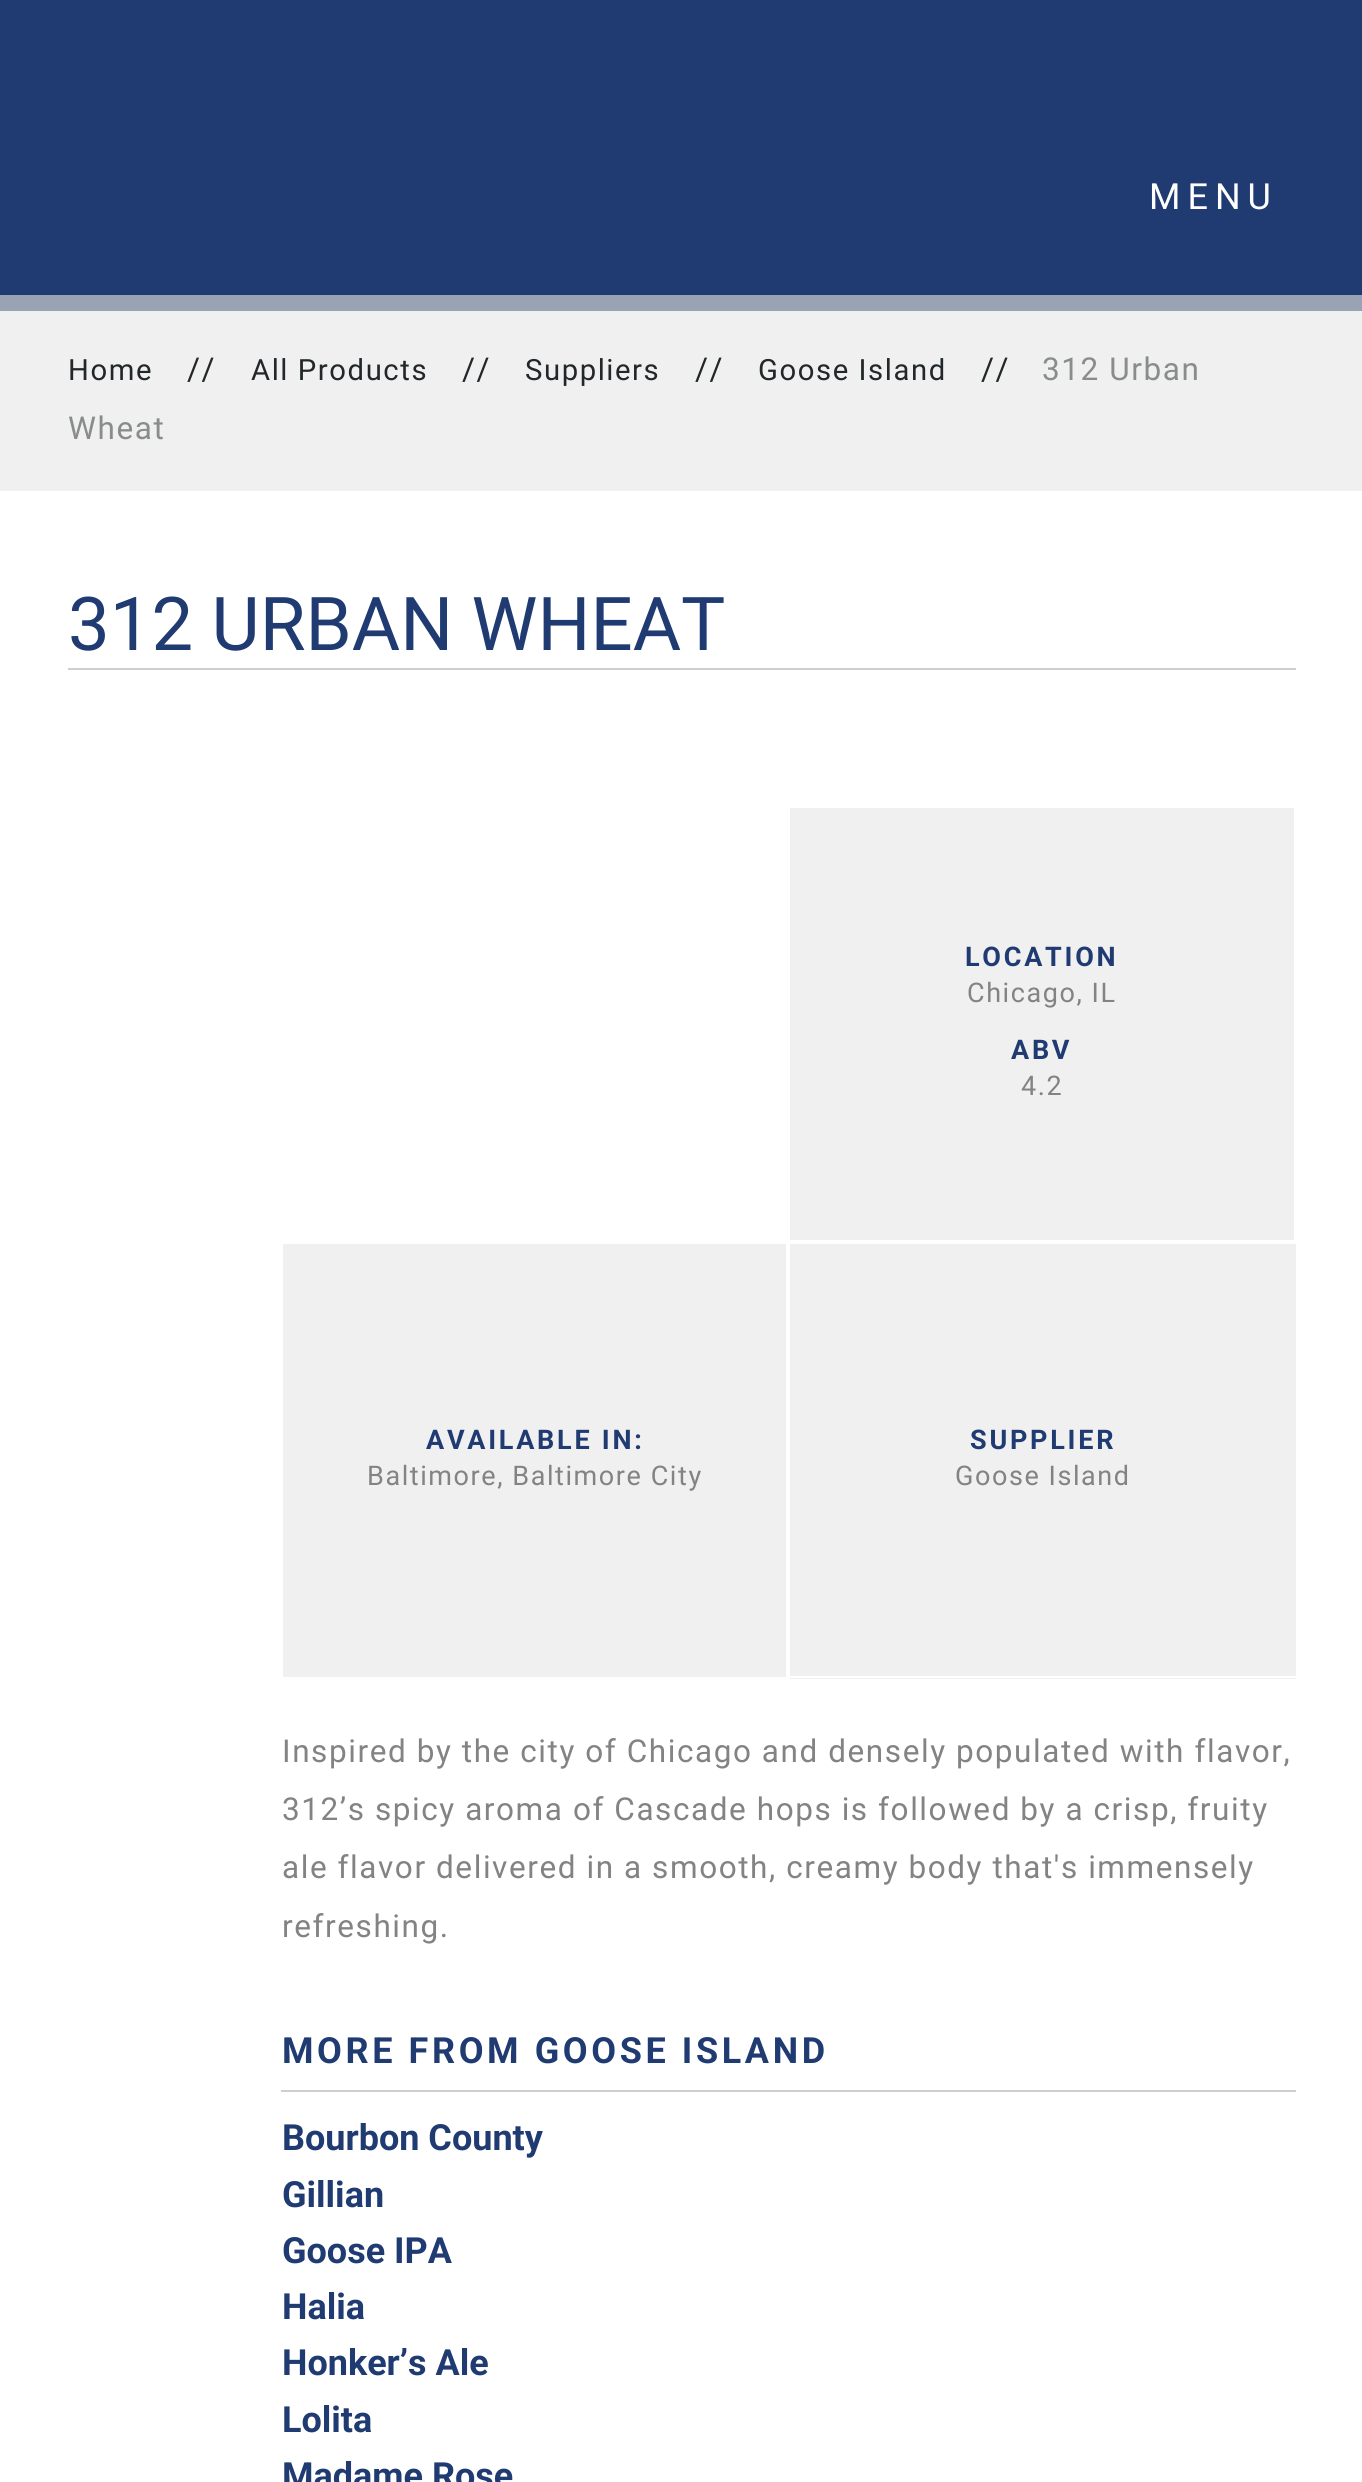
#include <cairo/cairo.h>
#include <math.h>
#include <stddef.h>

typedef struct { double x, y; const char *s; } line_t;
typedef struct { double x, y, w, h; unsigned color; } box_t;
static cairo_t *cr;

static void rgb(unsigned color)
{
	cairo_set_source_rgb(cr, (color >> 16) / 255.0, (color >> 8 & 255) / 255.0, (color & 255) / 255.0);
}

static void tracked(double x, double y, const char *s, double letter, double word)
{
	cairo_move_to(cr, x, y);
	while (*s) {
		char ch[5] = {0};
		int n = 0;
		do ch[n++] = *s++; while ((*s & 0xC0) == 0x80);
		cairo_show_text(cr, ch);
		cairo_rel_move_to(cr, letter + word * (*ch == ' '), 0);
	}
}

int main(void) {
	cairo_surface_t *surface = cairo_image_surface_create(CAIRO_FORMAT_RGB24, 1362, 2482);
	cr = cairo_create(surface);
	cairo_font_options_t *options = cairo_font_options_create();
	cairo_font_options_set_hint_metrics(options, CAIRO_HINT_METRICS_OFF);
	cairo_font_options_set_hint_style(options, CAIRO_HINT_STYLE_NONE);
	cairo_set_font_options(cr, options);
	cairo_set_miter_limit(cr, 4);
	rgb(0xffffff);
	cairo_paint(cr);
	{
		static const box_t items[] = {
			{0, 0, 1362, 295, 0x1f3b72},
			{0, 295, 1362, 16, 0x9aa3b3},
			{0, 311, 1362, 180, 0xf0f0f0},
			{68, 668, 1228, 2, 0xcfcfcf},
			{790, 808, 504, 432, 0xf0f0f0},
			{283, 1244, 503, 433, 0xf0f0f0},
			{790, 1244, 506, 435, 0xf0f0f0},
			{788, 1676, 508, 2, 0xffffff},
			{281, 2090, 1015, 2, 0xcfcfcf},
		};
		for (size_t i = 0; i < sizeof items / sizeof *items; i++) {
			rgb(items[i].color);
			cairo_rectangle(cr, items[i].x, items[i].y, items[i].w, items[i].h);
			cairo_fill(cr);
		}
	}
	cairo_select_font_face(cr, "Roboto", CAIRO_FONT_SLANT_NORMAL, CAIRO_FONT_WEIGHT_NORMAL);
	cairo_set_font_size(cr, 36);
	rgb(0xffffff);
	tracked(1149, 209, "MENU", 7, 0);
	cairo_set_font_size(cr, 29.25);
	rgb(0x22272a);
	tracked(68, 380, "Home", 1.57, 0);
	cairo_set_font_size(cr, 31.5);
	tracked(187, 380, "//", 1.57, 0);
	cairo_set_font_size(cr, 29.25);
	tracked(251, 380, "All Products", 1.57, 0);
	cairo_set_font_size(cr, 31.5);
	tracked(462, 380, "//", 1.57, 0);
	cairo_set_font_size(cr, 29.25);
	tracked(525, 380, "Suppliers", 1.57, 0);
	cairo_set_font_size(cr, 31.5);
	tracked(695, 380, "//", 1.57, 0);
	cairo_set_font_size(cr, 29.25);
	tracked(758, 380, "Goose Island", 1.57, 0);
	cairo_set_font_size(cr, 31.5);
	tracked(981, 380, "//", 1.57, 0);
	rgb(0x898c8d);
	tracked(1042, 380, "312 Urban", 1.57, 0);
	tracked(68, 439, "Wheat", 1.57, 0);
	cairo_set_font_size(cr, 74.25);
	rgb(0x1f3b72);
	cairo_move_to(cr, 68, 650);
	cairo_show_text(cr, "312 URBAN WHEAT");
	cairo_select_font_face(cr, "Roboto", CAIRO_FONT_SLANT_NORMAL, CAIRO_FONT_WEIGHT_BOLD);
	cairo_set_font_size(cr, 27);
	tracked(965, 966, "LOCATION", 2.75, 0);
	cairo_select_font_face(cr, "Roboto", CAIRO_FONT_SLANT_NORMAL, CAIRO_FONT_WEIGHT_NORMAL);
	rgb(0x838383);
	tracked(967, 1002, "Chicago, IL", 1.57, 0);
	cairo_select_font_face(cr, "Roboto", CAIRO_FONT_SLANT_NORMAL, CAIRO_FONT_WEIGHT_BOLD);
	rgb(0x1f3b72);
	tracked(1011, 1059, "ABV", 2.75, 0);
	cairo_select_font_face(cr, "Roboto", CAIRO_FONT_SLANT_NORMAL, CAIRO_FONT_WEIGHT_NORMAL);
	rgb(0x838383);
	tracked(1021, 1095, "4.2", 1.57, 0);
	cairo_select_font_face(cr, "Roboto", CAIRO_FONT_SLANT_NORMAL, CAIRO_FONT_WEIGHT_BOLD);
	rgb(0x1f3b72);
	tracked(426, 1449, "AVAILABLE IN:", 2.75, 0);
	cairo_select_font_face(cr, "Roboto", CAIRO_FONT_SLANT_NORMAL, CAIRO_FONT_WEIGHT_NORMAL);
	rgb(0x838383);
	tracked(367, 1485, "Baltimore, Baltimore City", 1.57, 0);
	cairo_select_font_face(cr, "Roboto", CAIRO_FONT_SLANT_NORMAL, CAIRO_FONT_WEIGHT_BOLD);
	rgb(0x1f3b72);
	tracked(970, 1449, "SUPPLIER", 2.75, 0);
	cairo_select_font_face(cr, "Roboto", CAIRO_FONT_SLANT_NORMAL, CAIRO_FONT_WEIGHT_NORMAL);
	rgb(0x838383);
	tracked(955, 1485, "Goose Island", 1.57, 0);
	cairo_set_font_size(cr, 31.5);
	{
		static const line_t items[] = {
			{282, 1762, "Inspired by the city of Chicago and densely populated with flavor,"},
			{282, 1820, "312’s spicy aroma of Cascade hops is followed by a crisp, fruity"},
			{282, 1878, "ale flavor delivered in a smooth, creamy body that's immensely"},
			{282, 1937, "refreshing."},
		};
		for (size_t i = 0; i < sizeof items / sizeof *items; i++) {
			tracked(items[i].x, items[i].y, items[i].s, 1.57, 0);
		}
	}
	cairo_select_font_face(cr, "Roboto", CAIRO_FONT_SLANT_NORMAL, CAIRO_FONT_WEIGHT_BOLD);
	cairo_set_font_size(cr, 36);
	rgb(0x1f3b72);
	tracked(282, 2063, "MORE FROM GOOSE ISLAND", 3.6, 0);
	{
		static const line_t items[] = {
			{282, 2150, "Bourbon County"},
			{282, 2207, "Gillian"},
			{282, 2263, "Goose IPA"},
			{282, 2319, "Halia"},
			{282, 2375, "Honker’s Ale"},
			{282, 2432, "Lolita"},
			{282, 2488, "Madame Rose"},
		};
		for (size_t i = 0; i < sizeof items / sizeof *items; i++) {
			cairo_move_to(cr, items[i].x, items[i].y);
			cairo_show_text(cr, items[i].s);
		}
	}
	cairo_surface_write_to_png(surface, "page.png");
	cairo_font_options_destroy(options);
	cairo_destroy(cr);
	cairo_surface_destroy(surface);
	return 0;
}
